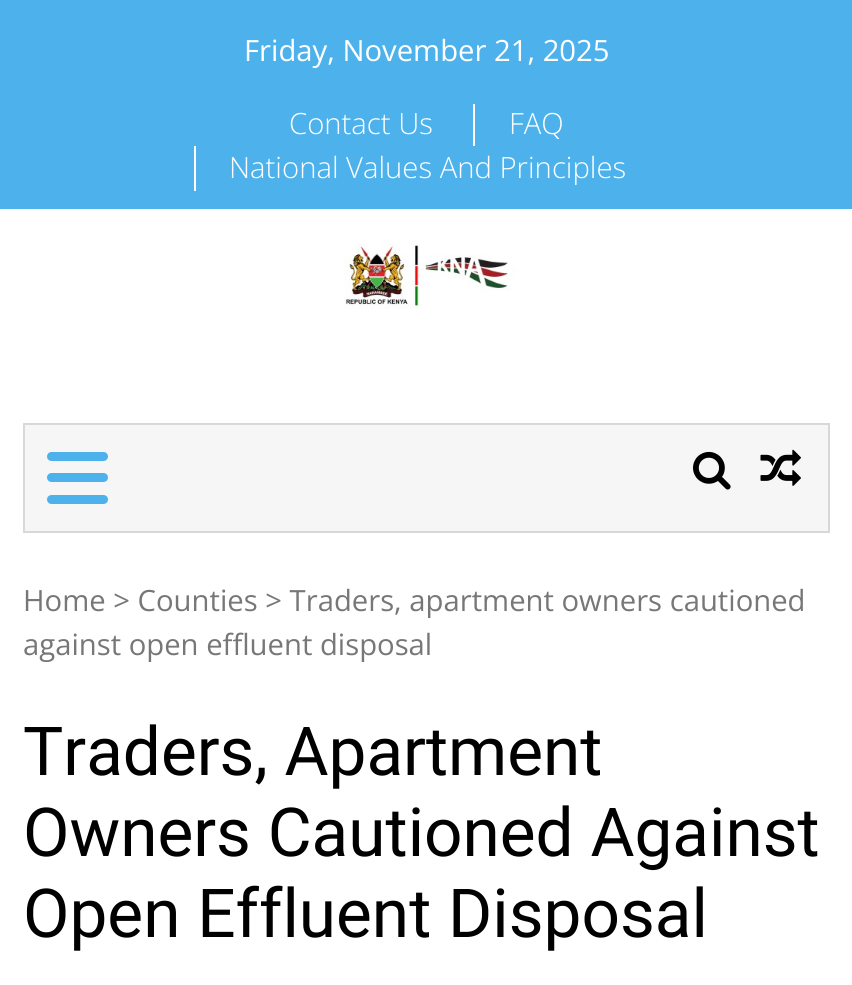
#include <cairo/cairo.h>
#include <math.h>
#include <stddef.h>

typedef struct { double x, y; const char *s; } line_t;
typedef struct { double x, y, w, h; unsigned color; } box_t;
static cairo_t *cr;

static void rgb(unsigned color)
{
	cairo_set_source_rgb(cr, (color >> 16) / 255.0, (color >> 8 & 255) / 255.0, (color & 255) / 255.0);
}

static void rrect(double x, double y, double w, double h, double r)
{
	cairo_new_sub_path(cr);
	cairo_arc(cr, x + w - r, y + h - r, r, 0, M_PI / 2);
	cairo_arc(cr, x + r, y + h - r, r, M_PI / 2, M_PI);
	cairo_arc(cr, x + r, y + r, r, M_PI, 1.5 * M_PI);
	cairo_arc(cr, x + w - r, y + r, r, 1.5 * M_PI, 2 * M_PI);
	cairo_close_path(cr);
}

static void image(const char *path, double x, double y, double w, double h)
{
	cairo_surface_t *image = cairo_image_surface_create_from_png(path);
	cairo_save(cr);
	cairo_set_source_surface(cr, image, x, y);
	cairo_rectangle(cr, x, y, w, h);
	cairo_fill(cr);
	cairo_restore(cr);
	cairo_surface_destroy(image);
}

int main(void) {
	cairo_surface_t *surface = cairo_image_surface_create(CAIRO_FORMAT_RGB24, 852, 985);
	cr = cairo_create(surface);
	cairo_font_options_t *options = cairo_font_options_create();
	cairo_font_options_set_hint_metrics(options, CAIRO_HINT_METRICS_OFF);
	cairo_font_options_set_hint_style(options, CAIRO_HINT_STYLE_NONE);
	cairo_set_font_options(cr, options);
	cairo_set_miter_limit(cr, 4);
	rgb(0xffffff);
	cairo_paint(cr);
	{
		static const box_t items[] = {
			{0, 0, 852, 209, 0x4db2ec},
			{473, 104, 2, 42, 0xffffff},
			{194, 146, 2, 45, 0xffffff},
		};
		for (size_t i = 0; i < sizeof items / sizeof *items; i++) {
			rgb(items[i].color);
			cairo_rectangle(cr, items[i].x, items[i].y, items[i].w, items[i].h);
			cairo_fill(cr);
		}
	}
	image("img/1.png", 344, 243, 173, 66);
	rgb(0xf6f6f6);
	cairo_rectangle(cr, 24, 424, 805, 108);
	cairo_fill_preserve(cr);
	rgb(0xd9d8d8);
	cairo_stroke(cr);
	rgb(0x4db2ec);
	rrect(47, 452, 61, 9, 4.5);
	cairo_fill(cr);
	rrect(47, 473, 61, 9, 4.5);
	cairo_fill(cr);
	rrect(47, 495, 61, 9, 4.5);
	cairo_fill(cr);
	image("img/2.png", 693, 451, 38, 39);
	image("img/3.png", 760, 449, 41, 37);
	cairo_select_font_face(cr, "Open Sans", CAIRO_FONT_SLANT_NORMAL, CAIRO_FONT_WEIGHT_NORMAL);
	cairo_set_font_size(cr, 29.25);
	rgb(0xffffff);
	cairo_move_to(cr, 244, 61);
	cairo_show_text(cr, "Friday, November 21, 2025");
	cairo_select_font_face(cr, "Open Sans Light", CAIRO_FONT_SLANT_NORMAL, CAIRO_FONT_WEIGHT_NORMAL);
	{
		static const line_t items[] = {
			{289, 134, "Contact Us"},
			{509, 134, "FAQ"},
			{229, 178, "National Values And Principles"},
		};
		for (size_t i = 0; i < sizeof items / sizeof *items; i++) {
			cairo_move_to(cr, items[i].x, items[i].y);
			cairo_show_text(cr, items[i].s);
		}
	}
	cairo_select_font_face(cr, "Open Sans", CAIRO_FONT_SLANT_NORMAL, CAIRO_FONT_WEIGHT_NORMAL);
	rgb(0x777777);
	cairo_move_to(cr, 23, 611);
	cairo_show_text(cr, "Home > Counties > Traders, apartment owners cautioned");
	cairo_move_to(cr, 23, 655);
	cairo_show_text(cr, "against open effluent disposal");
	cairo_select_font_face(cr, "Roboto", CAIRO_FONT_SLANT_NORMAL, CAIRO_FONT_WEIGHT_NORMAL);
	cairo_set_font_size(cr, 67.5);
	rgb(0x000000);
	{
		static const line_t items[] = {
			{23, 775, "Traders, Apartment"},
			{23, 856, "Owners Cautioned Against"},
			{23, 937, "Open Effluent Disposal"},
		};
		for (size_t i = 0; i < sizeof items / sizeof *items; i++) {
			cairo_move_to(cr, items[i].x, items[i].y);
			cairo_show_text(cr, items[i].s);
		}
	}
	cairo_surface_write_to_png(surface, "page.png");
	cairo_font_options_destroy(options);
	cairo_destroy(cr);
	cairo_surface_destroy(surface);
	return 0;
}
